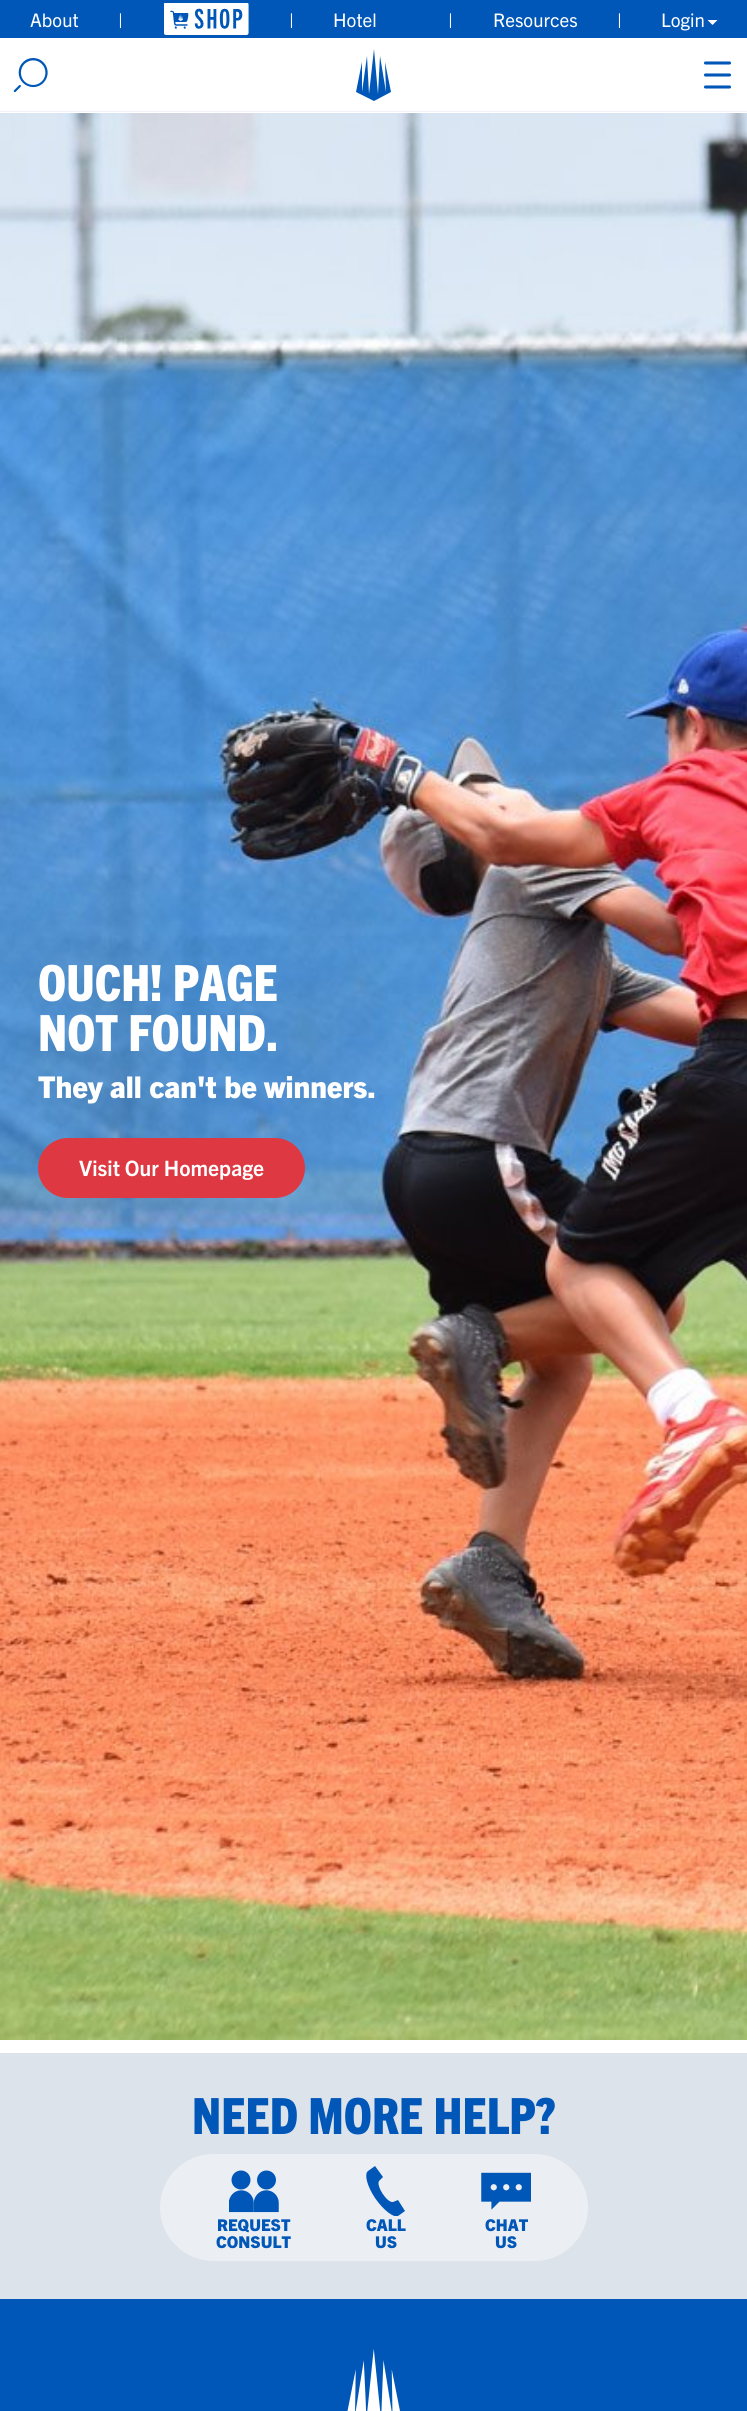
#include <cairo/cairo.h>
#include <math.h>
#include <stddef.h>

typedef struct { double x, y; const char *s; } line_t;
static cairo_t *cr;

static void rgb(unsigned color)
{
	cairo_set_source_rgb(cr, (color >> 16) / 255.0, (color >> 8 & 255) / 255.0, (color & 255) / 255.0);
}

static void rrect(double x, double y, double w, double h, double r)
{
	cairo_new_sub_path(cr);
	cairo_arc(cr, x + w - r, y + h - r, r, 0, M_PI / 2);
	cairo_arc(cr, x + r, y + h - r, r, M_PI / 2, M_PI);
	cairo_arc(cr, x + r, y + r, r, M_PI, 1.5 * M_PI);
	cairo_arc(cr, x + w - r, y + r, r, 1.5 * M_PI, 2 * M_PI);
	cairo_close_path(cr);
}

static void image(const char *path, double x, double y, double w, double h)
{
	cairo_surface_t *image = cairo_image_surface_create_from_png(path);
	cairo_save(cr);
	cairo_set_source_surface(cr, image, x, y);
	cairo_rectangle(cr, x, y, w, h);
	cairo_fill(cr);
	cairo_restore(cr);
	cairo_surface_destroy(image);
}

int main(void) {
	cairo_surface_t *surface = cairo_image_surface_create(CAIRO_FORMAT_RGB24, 747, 2411);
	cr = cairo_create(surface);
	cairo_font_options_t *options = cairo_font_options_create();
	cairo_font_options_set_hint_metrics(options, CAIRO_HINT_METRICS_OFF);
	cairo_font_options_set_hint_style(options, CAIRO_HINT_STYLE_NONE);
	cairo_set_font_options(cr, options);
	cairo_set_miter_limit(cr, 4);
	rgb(0xffffff);
	cairo_paint(cr);
	rgb(0x0057b8);
	cairo_rectangle(cr, 0, 0, 747, 38);
	cairo_fill(cr);
	image("img/1.png", 164, 3, 85, 32);
	rgb(0xffffff);
	cairo_new_path(cr);
	cairo_move_to(cr, 707.5, 20);
	cairo_line_to(cr, 717.5, 20);
	cairo_line_to(cr, 712.5, 25);
	cairo_close_path(cr);
	cairo_fill(cr);
	rgb(0xeff2f6);
	cairo_rectangle(cr, 0, 111, 747, 1);
	cairo_fill(cr);
	image("img/2.png", 13, 58, 35, 35);
	rgb(0x0057b8);
	cairo_new_path(cr);
	cairo_move_to(cr, 391, 92);
	cairo_line_to(cr, 385, 62);
	cairo_line_to(cr, 386, 92);
	cairo_line_to(cr, 380, 56);
	cairo_line_to(cr, 378, 94);
	cairo_line_to(cr, 374, 49);
	cairo_line_to(cr, 369, 94);
	cairo_line_to(cr, 367, 56);
	cairo_line_to(cr, 362, 92);
	cairo_line_to(cr, 362, 62);
	cairo_line_to(cr, 356, 92);
	cairo_line_to(cr, 374, 101);
	cairo_close_path(cr);
	cairo_fill(cr);
	cairo_new_path(cr);
	cairo_move_to(cr, 705.5, 63);
	cairo_line_to(cr, 729.5, 63);
	cairo_move_to(cr, 705.5, 75);
	cairo_line_to(cr, 729.5, 75);
	cairo_move_to(cr, 705.5, 87);
	cairo_line_to(cr, 729.5, 87);
	cairo_set_line_width(cr, 3.1);
	cairo_set_line_cap(cr, CAIRO_LINE_CAP_ROUND);
	cairo_set_line_join(cr, CAIRO_LINE_JOIN_ROUND);
	cairo_stroke(cr);
	image("img/3.png", 0, 113, 747, 1927);
	rgb(0xde3942);
	rrect(38, 1138, 267, 60, 30);
	cairo_fill(cr);
	rgb(0xdde3eb);
	cairo_rectangle(cr, 0, 2053, 747, 246);
	cairo_fill(cr);
	rgb(0xebeef3);
	rrect(160, 2154, 428, 107, 53.5);
	cairo_fill(cr);
	image("img/4.png", 229, 2170, 50, 43);
	cairo_save(cr);
	cairo_rectangle(cr, 366, 2166, 40, 50);
	cairo_clip(cr);
	rgb(0x0057b8);
	cairo_new_path(cr);
	cairo_move_to(cr, 398, 2200);
	cairo_line_to(cr, 393, 2202);
	cairo_curve_to(cr, 387, 2203, 376, 2186, 379, 2181);
	cairo_line_to(cr, 383, 2177);
	cairo_line_to(cr, 375, 2166);
	cairo_line_to(cr, 368, 2171);
	cairo_curve_to(cr, 364, 2174, 367, 2186, 375, 2198);
	cairo_curve_to(cr, 384, 2211, 394, 2218, 398, 2216);
	cairo_line_to(cr, 405, 2211);
	cairo_close_path(cr);
	cairo_fill(cr);
	cairo_restore(cr);
	image("img/5.png", 481, 2172, 50, 38);
	rgb(0x0057b8);
	cairo_rectangle(cr, 0, 2299, 747, 112);
	cairo_fill(cr);
	image("img/6.png", 347, 2349, 53, 62);
	cairo_select_font_face(cr, "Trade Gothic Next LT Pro", CAIRO_FONT_SLANT_NORMAL, CAIRO_FONT_WEIGHT_NORMAL);
	cairo_set_font_size(cr, 18.75);
	rgb(0xffffff);
	{
		static const line_t items[] = {
			{30, 27, "About"},
			{118, 27, "|"},
			{289, 27, "|"},
			{333, 27, "Hotel"},
			{448, 27, "|"},
			{493, 27, "Resources"},
			{617, 27, "|"},
			{661, 27, "Login"},
		};
		for (size_t i = 0; i < sizeof items / sizeof *items; i++) {
			cairo_move_to(cr, items[i].x, items[i].y);
			cairo_show_text(cr, items[i].s);
		}
	}
	cairo_select_font_face(cr, "Trade Gothic Next LT Pro ExtraBold", CAIRO_FONT_SLANT_NORMAL, CAIRO_FONT_WEIGHT_NORMAL);
	cairo_set_font_size(cr, 50);
	cairo_move_to(cr, 38, 1001);
	cairo_show_text(cr, "OUCH! PAGE");
	cairo_move_to(cr, 38, 1051);
	cairo_show_text(cr, "NOT FOUND.");
	cairo_select_font_face(cr, "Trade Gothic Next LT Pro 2 ExtraBold", CAIRO_FONT_SLANT_NORMAL, CAIRO_FONT_WEIGHT_NORMAL);
	cairo_set_font_size(cr, 30);
	cairo_move_to(cr, 38, 1098);
	cairo_show_text(cr, "They all can't be winners.");
	cairo_select_font_face(cr, "Trade Gothic Next LT Pro", CAIRO_FONT_SLANT_NORMAL, CAIRO_FONT_WEIGHT_BOLD);
	cairo_set_font_size(cr, 21.25);
	cairo_move_to(cr, 79, 1176);
	cairo_show_text(cr, "Visit Our Homepage");
	cairo_select_font_face(cr, "Trade Gothic Next LT Pro ExtraBold", CAIRO_FONT_SLANT_NORMAL, CAIRO_FONT_WEIGHT_NORMAL);
	cairo_set_font_size(cr, 50);
	rgb(0x0057b8);
	cairo_move_to(cr, 192, 2134);
	cairo_show_text(cr, "NEED MORE HELP?");
	cairo_select_font_face(cr, "Trade Gothic Next LT Pro 2 ExtraBold", CAIRO_FONT_SLANT_NORMAL, CAIRO_FONT_WEIGHT_NORMAL);
	cairo_set_font_size(cr, 16.25);
	{
		static const line_t items[] = {
			{217, 2231, "REQUEST"},
			{216, 2248, "CONSULT"},
			{366, 2231, "CALL"},
			{375, 2248, "US"},
			{485, 2231, "CHAT"},
			{495, 2248, "US"},
		};
		for (size_t i = 0; i < sizeof items / sizeof *items; i++) {
			cairo_move_to(cr, items[i].x, items[i].y);
			cairo_show_text(cr, items[i].s);
		}
	}
	cairo_surface_write_to_png(surface, "page.png");
	cairo_font_options_destroy(options);
	cairo_destroy(cr);
	cairo_surface_destroy(surface);
	return 0;
}
